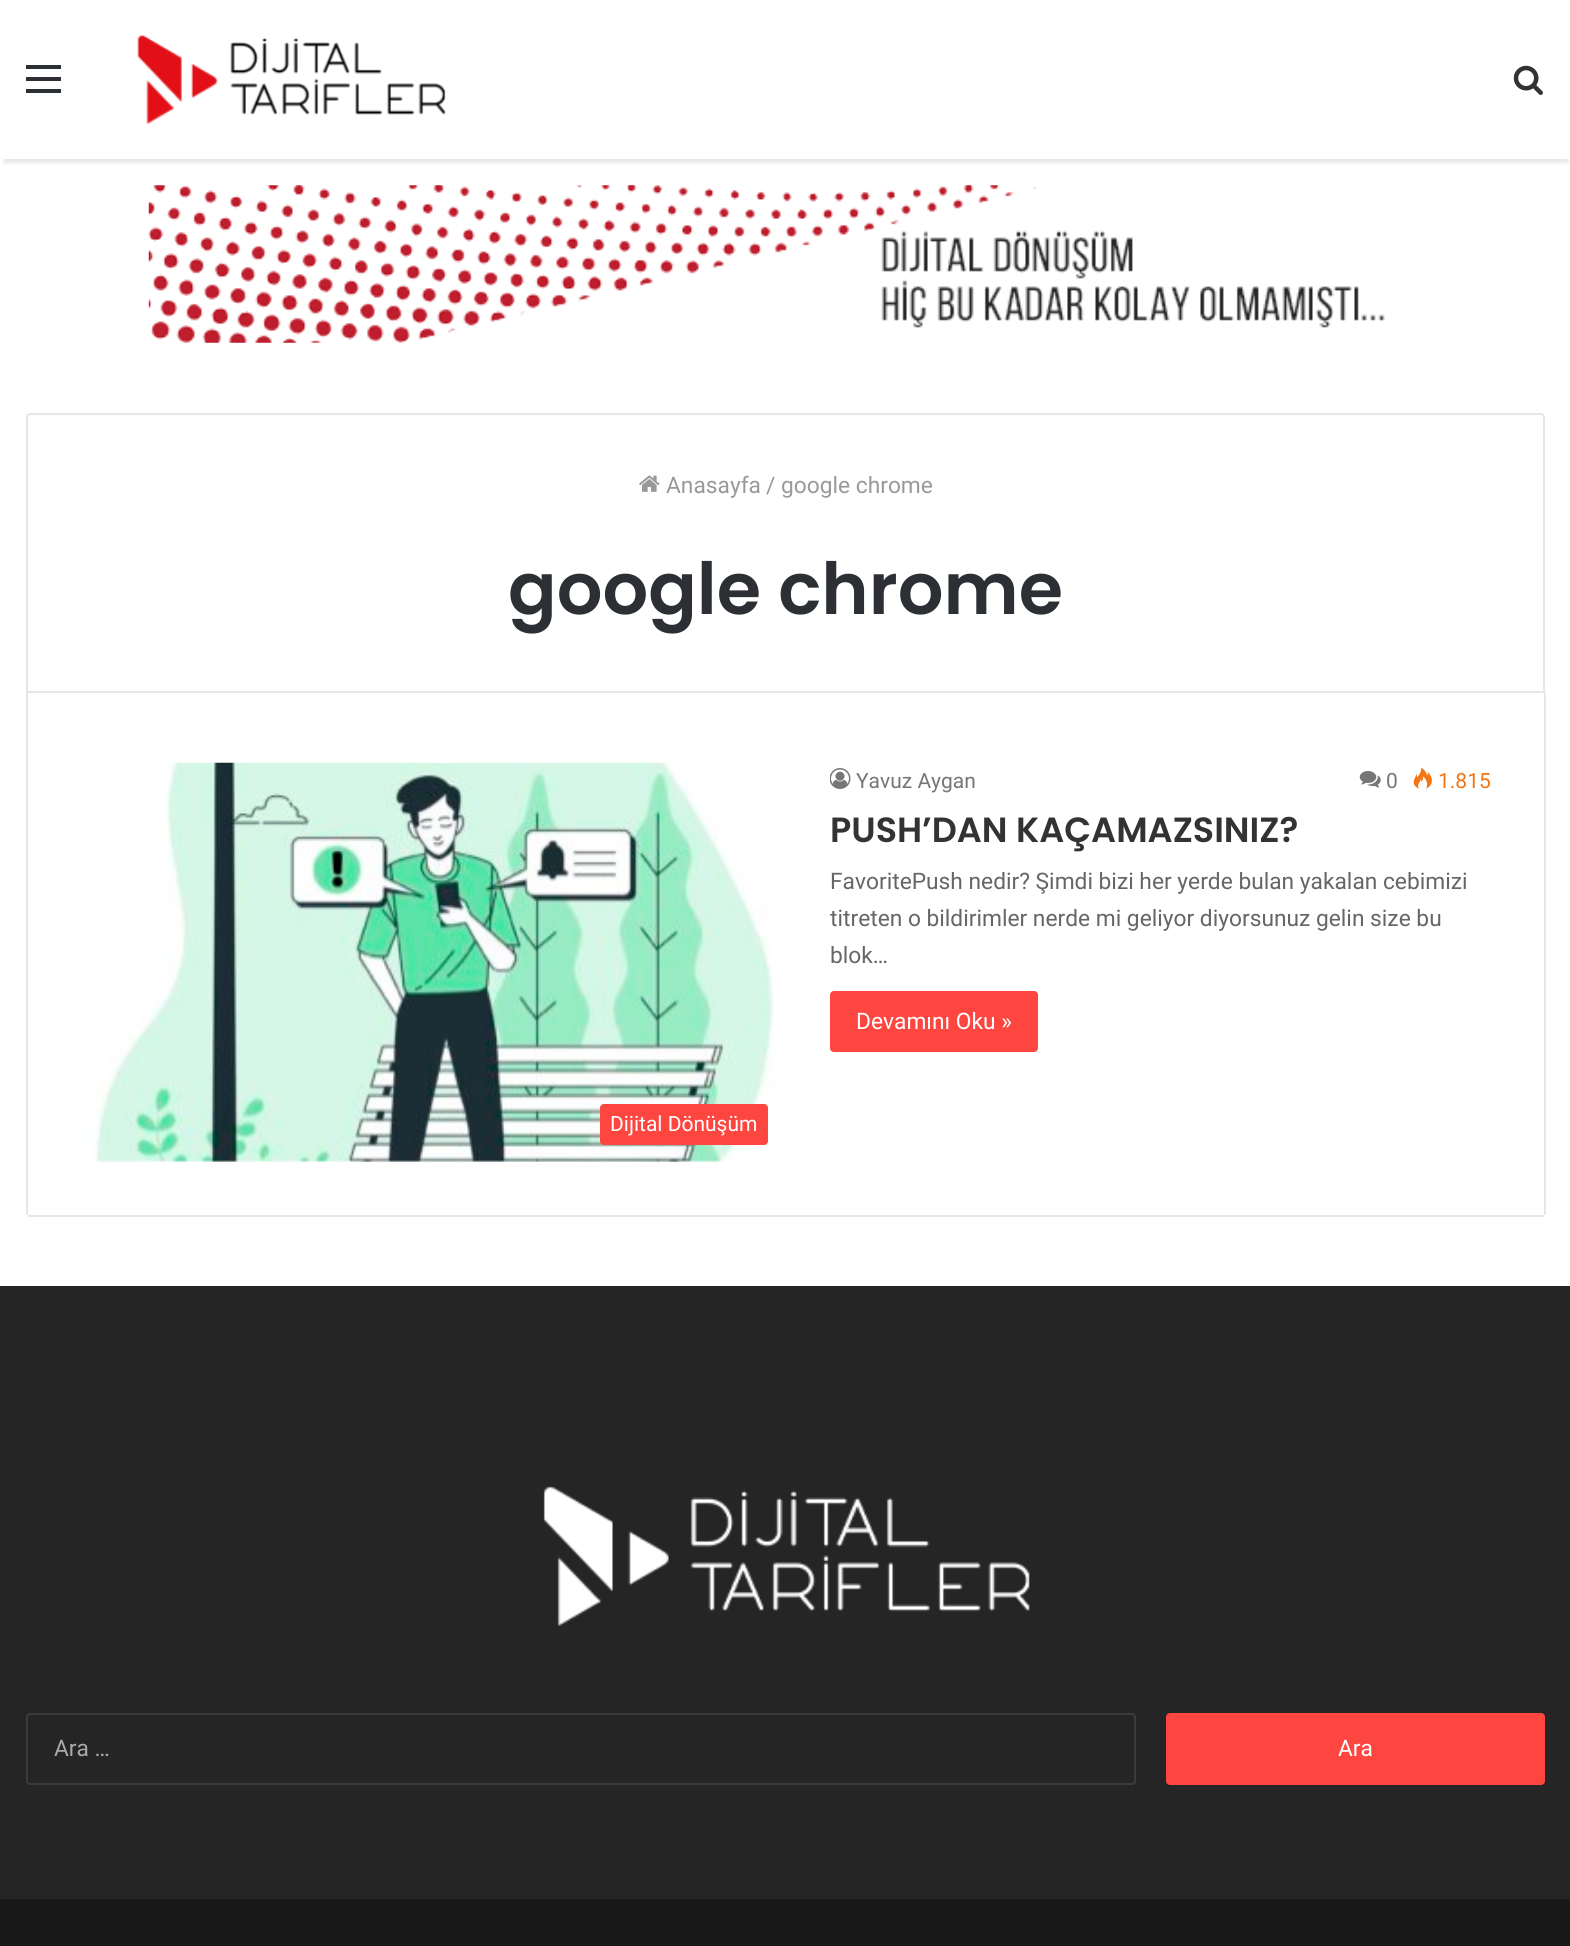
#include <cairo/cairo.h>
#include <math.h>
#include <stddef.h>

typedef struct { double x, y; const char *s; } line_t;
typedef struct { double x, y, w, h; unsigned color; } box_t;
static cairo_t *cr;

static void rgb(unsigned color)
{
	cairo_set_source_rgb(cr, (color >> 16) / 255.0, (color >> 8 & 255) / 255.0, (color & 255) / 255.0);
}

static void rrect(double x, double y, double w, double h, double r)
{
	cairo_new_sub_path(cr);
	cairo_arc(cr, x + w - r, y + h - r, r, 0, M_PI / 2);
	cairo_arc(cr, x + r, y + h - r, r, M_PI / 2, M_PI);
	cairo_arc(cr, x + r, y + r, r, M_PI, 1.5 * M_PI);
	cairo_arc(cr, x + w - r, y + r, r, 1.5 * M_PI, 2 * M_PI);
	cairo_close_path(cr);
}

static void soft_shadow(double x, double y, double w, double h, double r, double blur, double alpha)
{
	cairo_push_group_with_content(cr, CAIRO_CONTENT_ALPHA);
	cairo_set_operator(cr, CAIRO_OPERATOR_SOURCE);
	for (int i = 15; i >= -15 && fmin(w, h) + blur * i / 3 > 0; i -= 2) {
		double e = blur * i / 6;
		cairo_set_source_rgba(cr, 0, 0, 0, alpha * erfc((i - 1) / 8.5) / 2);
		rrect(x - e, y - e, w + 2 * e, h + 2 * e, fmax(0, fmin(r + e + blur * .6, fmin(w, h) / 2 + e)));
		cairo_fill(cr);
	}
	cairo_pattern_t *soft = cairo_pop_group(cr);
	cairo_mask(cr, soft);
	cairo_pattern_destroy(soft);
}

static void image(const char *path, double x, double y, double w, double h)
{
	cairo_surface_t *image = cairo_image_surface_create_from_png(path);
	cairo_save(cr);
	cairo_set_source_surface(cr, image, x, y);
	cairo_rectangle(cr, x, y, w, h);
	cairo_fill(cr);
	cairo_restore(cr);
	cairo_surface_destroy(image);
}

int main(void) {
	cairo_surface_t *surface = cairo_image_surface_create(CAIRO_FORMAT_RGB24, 1570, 1946);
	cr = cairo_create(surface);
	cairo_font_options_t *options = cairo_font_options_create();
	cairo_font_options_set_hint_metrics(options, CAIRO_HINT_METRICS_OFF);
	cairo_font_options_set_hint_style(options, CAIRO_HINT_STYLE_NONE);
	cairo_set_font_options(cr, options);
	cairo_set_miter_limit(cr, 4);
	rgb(0xffffff);
	cairo_paint(cr);
	cairo_save(cr);
	cairo_rectangle(cr, 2, 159, 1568, 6);
	cairo_clip(cr);
	rgb(0x000000);
	soft_shadow(4, 11, 1564, 152, 0, 2, 0.1);
	cairo_restore(cr);
	{
		static const box_t items[] = {
			{26, 77, 35, 4, 0x2c2f34},
			{26, 65, 35, 4, 0x2c2f34},
			{26, 89, 35, 4, 0x2c2f34},
		};
		for (size_t i = 0; i < sizeof items / sizeof *items; i++) {
			rgb(items[i].color);
			cairo_rectangle(cr, items[i].x, items[i].y, items[i].w, items[i].h);
			cairo_fill(cr);
		}
	}
	image("img/1.png", 137, 35, 309, 90);
	image("img/2.png", 1513, 65, 30, 30);
	image("img/3.png", 148, 185, 1237, 158);
	cairo_new_path(cr);
	cairo_move_to(cr, 30, 414);
	cairo_line_to(cr, 1541, 414);
	cairo_curve_to(cr, 1542.5, 414, 1544, 415.5, 1544, 417);
	cairo_line_to(cr, 1544, 692);
	cairo_line_to(cr, 27, 692);
	cairo_line_to(cr, 27, 417);
	cairo_curve_to(cr, 27, 415.5, 28.5, 414, 30, 414);
	cairo_close_path(cr);
	rgb(0xe6e6e6);
	cairo_stroke(cr);
	image("img/4.png", 639, 475, 21, 17);
	{
		static const box_t items[] = {
			{1544, 693, 2, 522, 0xe6e6e6},
			{28, 1215, 1516, 2, 0xe6e6e6},
			{26, 693, 2, 522, 0xe6e6e6},
		};
		for (size_t i = 0; i < sizeof items / sizeof *items; i++) {
			rgb(items[i].color);
			cairo_rectangle(cr, items[i].x, items[i].y, items[i].w, items[i].h);
			cairo_fill(cr);
		}
	}
	image("img/5.png", 830, 768, 21, 21);
	image("img/6.png", 1359, 771, 22, 17);
	image("img/7.png", 1413, 767, 19, 22);
	rgb(0xfe4641);
	rrect(830, 991, 208, 61, 4);
	cairo_fill(cr);
	image("img/8.png", 81, 762, 693, 400);
	rrect(600, 1104, 168, 41, 4);
	cairo_fill(cr);
	rgb(0x252525);
	cairo_rectangle(cr, 0, 1286, 1570, 613);
	cairo_fill(cr);
	image("img/9.png", 543, 1486, 487, 140);
	rrect(27, 1714, 1108, 70, 3);
	rgb(0x3b3b3b);
	cairo_stroke(cr);
	rgb(0xfe4641);
	rrect(1166, 1713, 379, 72, 4);
	cairo_fill(cr);
	rgb(0x181818);
	cairo_rectangle(cr, 0, 1899, 1570, 47);
	cairo_fill(cr);
	cairo_select_font_face(cr, "Roboto", CAIRO_FONT_SLANT_NORMAL, CAIRO_FONT_WEIGHT_NORMAL);
	cairo_set_font_size(cr, 22.75);
	rgb(0x999999);
	{
		static const line_t items[] = {
			{666, 493, "Anasayfa"},
			{766, 493, "/"},
			{781, 493, "google chrome"},
		};
		for (size_t i = 0; i < sizeof items / sizeof *items; i++) {
			cairo_move_to(cr, items[i].x, items[i].y);
			cairo_show_text(cr, items[i].s);
		}
	}
	cairo_select_font_face(cr, "Poppins SemiBold", CAIRO_FONT_SLANT_NORMAL, CAIRO_FONT_WEIGHT_NORMAL);
	cairo_set_font_size(cr, 71.75);
	rgb(0x2c2f34);
	cairo_move_to(cr, 508, 614);
	cairo_show_text(cr, "google chrome");
	cairo_select_font_face(cr, "Roboto", CAIRO_FONT_SLANT_NORMAL, CAIRO_FONT_WEIGHT_NORMAL);
	cairo_set_font_size(cr, 21);
	rgb(0x767676);
	cairo_move_to(cr, 856, 788);
	cairo_show_text(cr, "Yavuz Aygan");
	cairo_move_to(cr, 1386, 788);
	cairo_show_text(cr, "0");
	rgb(0xf47512);
	cairo_move_to(cr, 1438, 788);
	cairo_show_text(cr, "1.815");
	cairo_select_font_face(cr, "Poppins SemiBold", CAIRO_FONT_SLANT_NORMAL, CAIRO_FONT_WEIGHT_NORMAL);
	cairo_set_font_size(cr, 35);
	rgb(0x333333);
	cairo_move_to(cr, 830, 842);
	cairo_show_text(cr, "PUSH’DAN KAÇAMAZSINIZ?");
	cairo_select_font_face(cr, "Roboto", CAIRO_FONT_SLANT_NORMAL, CAIRO_FONT_WEIGHT_NORMAL);
	cairo_set_font_size(cr, 22.75);
	rgb(0x666666);
	{
		static const line_t items[] = {
			{830, 889, "FavoritePush nedir? Şimdi bizi her yerde bulan yakalan cebimizi"},
			{830, 926, "titreten o bildirimler nerde mi geliyor diyorsunuz gelin size bu"},
			{830, 963, "blok…"},
		};
		for (size_t i = 0; i < sizeof items / sizeof *items; i++) {
			cairo_move_to(cr, items[i].x, items[i].y);
			cairo_show_text(cr, items[i].s);
		}
	}
	rgb(0xffffff);
	cairo_move_to(cr, 856, 1029);
	cairo_show_text(cr, "Devamını Oku »");
	cairo_set_font_size(cr, 21);
	cairo_move_to(cr, 610, 1131);
	cairo_show_text(cr, "Dijital Dönüşüm");
	cairo_set_font_size(cr, 22.75);
	rgb(0xaaaaaa);
	cairo_move_to(cr, 54, 1756);
	cairo_show_text(cr, "Ara …");
	rgb(0xffffff);
	cairo_move_to(cr, 1338, 1756);
	cairo_show_text(cr, "Ara");
	cairo_surface_write_to_png(surface, "page.png");
	cairo_font_options_destroy(options);
	cairo_destroy(cr);
	cairo_surface_destroy(surface);
	return 0;
}
